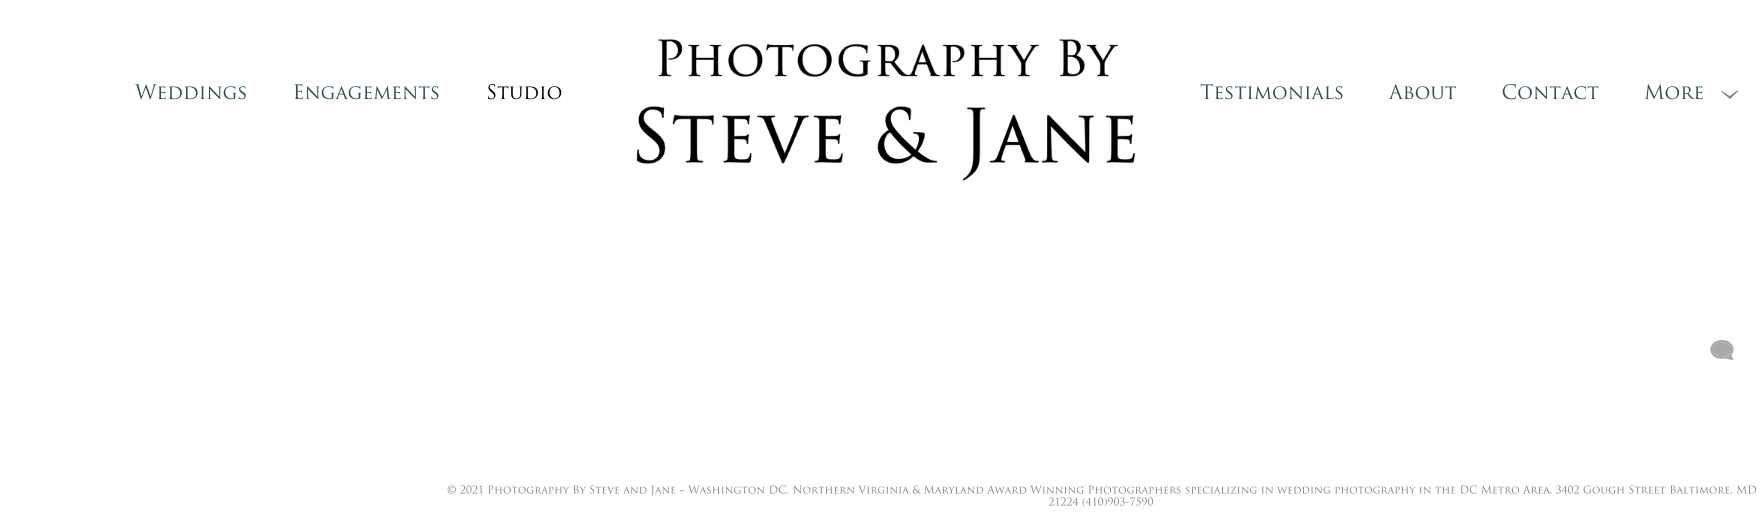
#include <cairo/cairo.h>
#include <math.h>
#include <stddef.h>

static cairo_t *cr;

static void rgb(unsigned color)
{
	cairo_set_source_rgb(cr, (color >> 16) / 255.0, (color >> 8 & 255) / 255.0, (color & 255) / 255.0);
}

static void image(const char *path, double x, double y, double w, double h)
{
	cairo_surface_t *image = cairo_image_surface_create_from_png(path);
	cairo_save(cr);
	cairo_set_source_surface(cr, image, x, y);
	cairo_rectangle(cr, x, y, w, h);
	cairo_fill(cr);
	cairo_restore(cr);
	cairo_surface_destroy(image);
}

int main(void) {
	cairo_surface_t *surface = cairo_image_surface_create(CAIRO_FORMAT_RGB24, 1762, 512);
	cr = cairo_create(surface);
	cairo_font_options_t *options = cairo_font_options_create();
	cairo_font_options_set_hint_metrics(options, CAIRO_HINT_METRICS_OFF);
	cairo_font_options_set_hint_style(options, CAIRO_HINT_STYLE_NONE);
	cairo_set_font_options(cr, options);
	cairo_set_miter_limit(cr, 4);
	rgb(0xffffff);
	cairo_paint(cr);
	image("img/1.png", 134, 84, 112, 16);
	image("img/2.png", 294, 84, 145, 16);
	image("img/3.png", 487, 84, 75, 16);
	image("img/4.png", 636, 38, 499, 143);
	image("img/5.png", 1200, 84, 143, 16);
	image("img/6.png", 1388, 84, 68, 16);
	image("img/7.png", 1502, 84, 97, 16);
	image("img/8.png", 1645, 84, 58, 16);
	image("img/9.png", 1721, 90, 17, 9);
	image("img/10.png", 1710, 340, 24, 21);
	image("img/11.png", 447, 485, 1105, 11);
	image("img/12.png", 1556, 485, 201, 10);
	image("img/13.png", 1049, 497, 104, 10);
	cairo_surface_write_to_png(surface, "page.png");
	cairo_font_options_destroy(options);
	cairo_destroy(cr);
	cairo_surface_destroy(surface);
	return 0;
}
